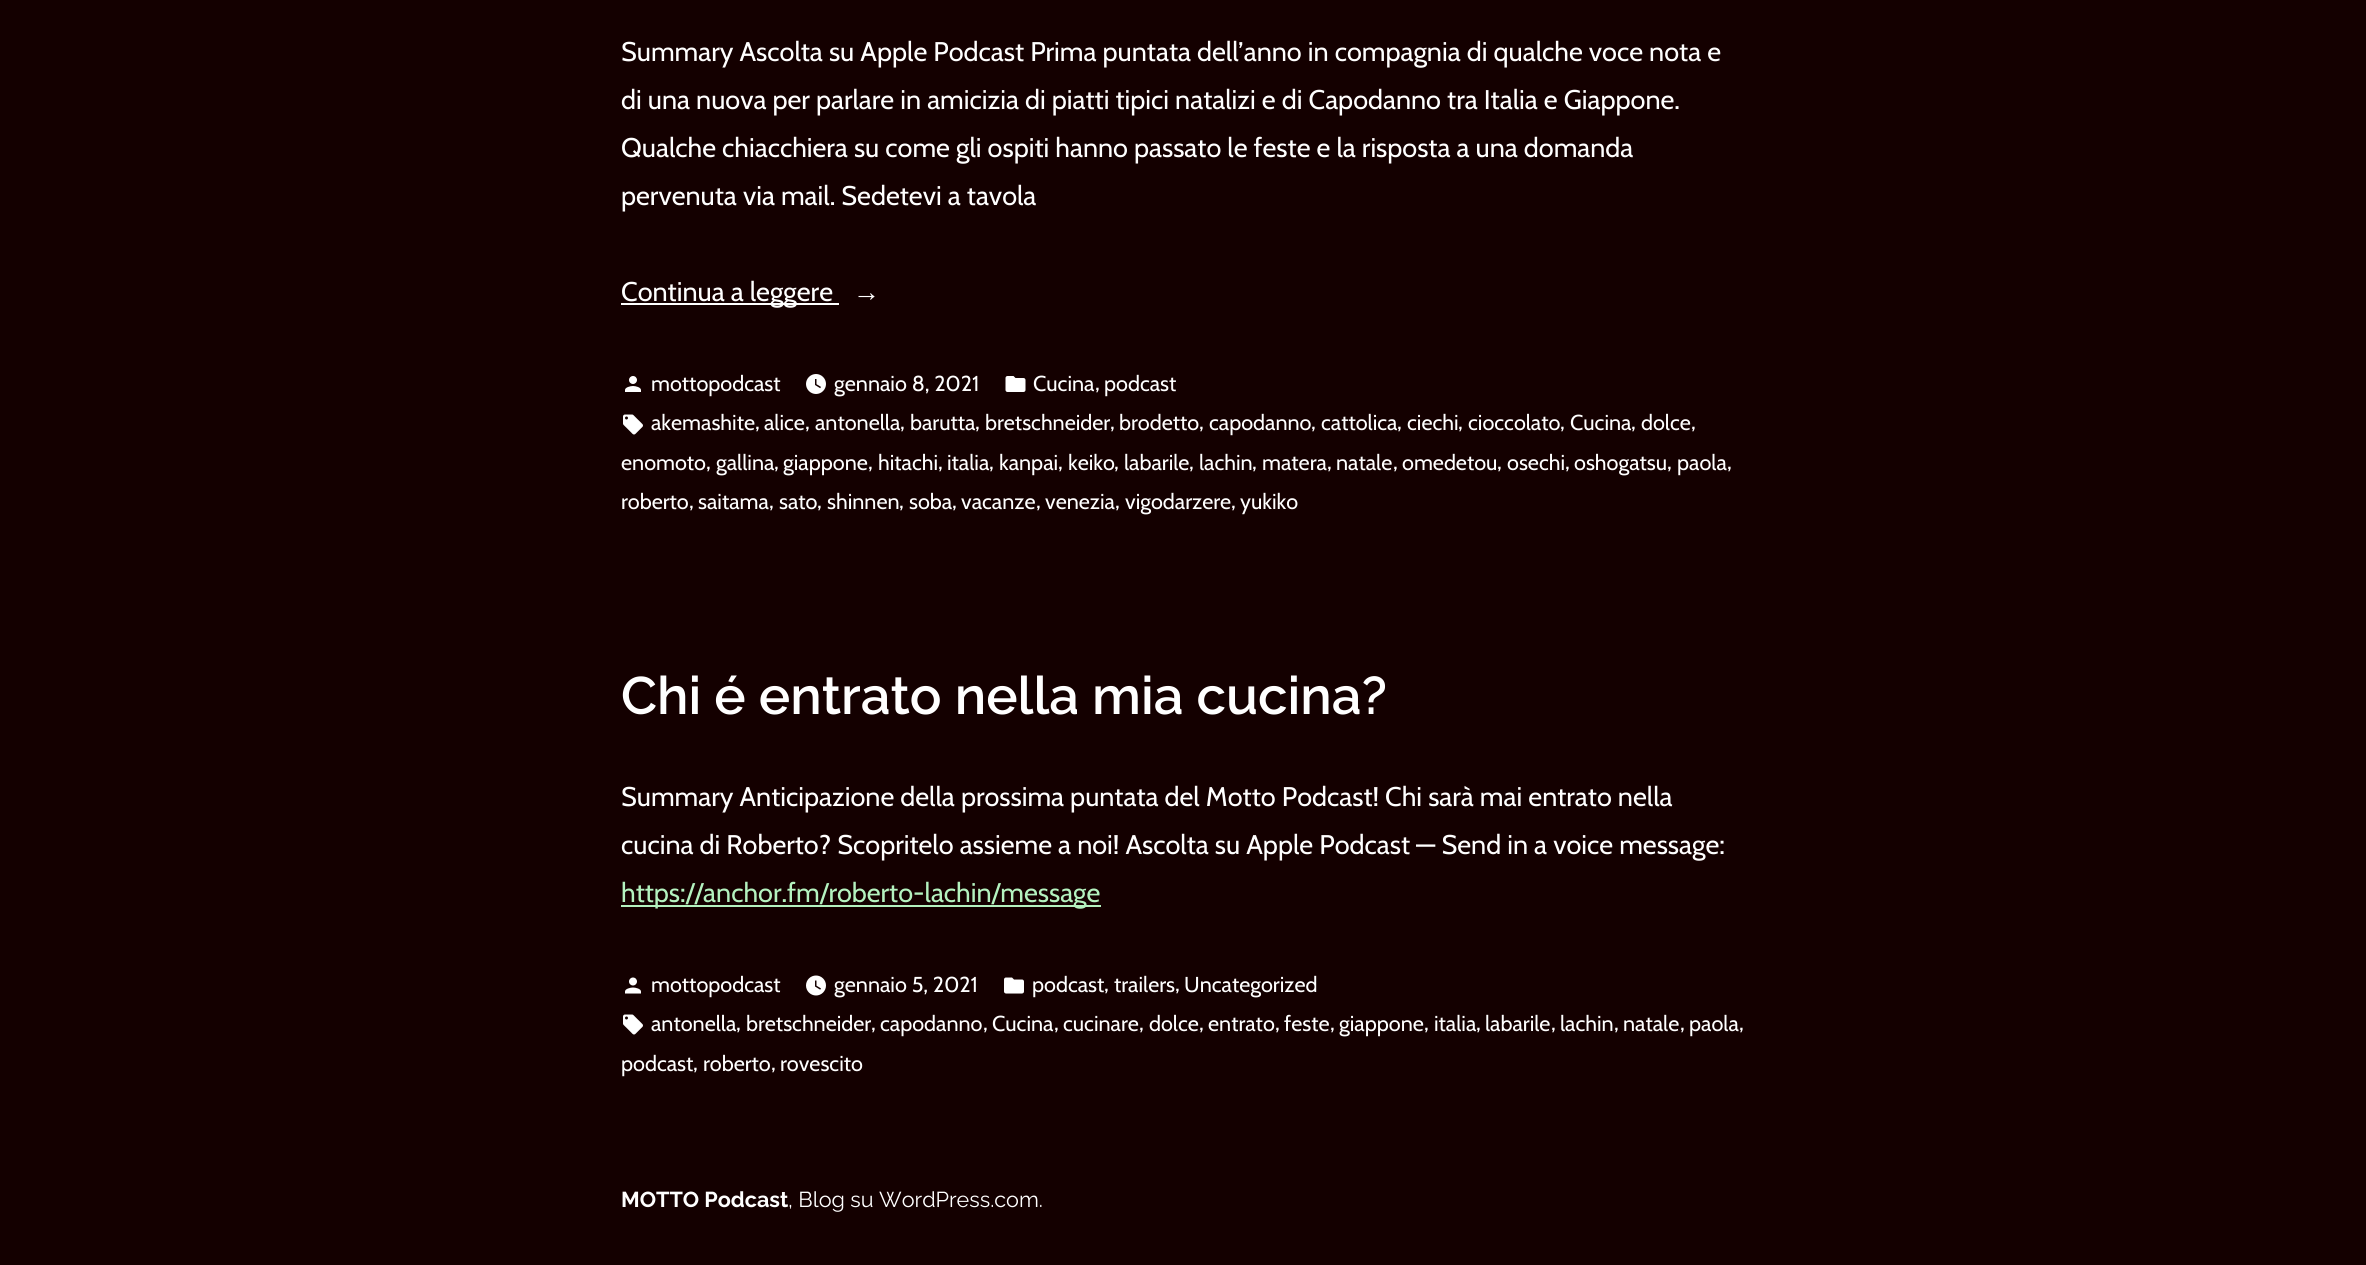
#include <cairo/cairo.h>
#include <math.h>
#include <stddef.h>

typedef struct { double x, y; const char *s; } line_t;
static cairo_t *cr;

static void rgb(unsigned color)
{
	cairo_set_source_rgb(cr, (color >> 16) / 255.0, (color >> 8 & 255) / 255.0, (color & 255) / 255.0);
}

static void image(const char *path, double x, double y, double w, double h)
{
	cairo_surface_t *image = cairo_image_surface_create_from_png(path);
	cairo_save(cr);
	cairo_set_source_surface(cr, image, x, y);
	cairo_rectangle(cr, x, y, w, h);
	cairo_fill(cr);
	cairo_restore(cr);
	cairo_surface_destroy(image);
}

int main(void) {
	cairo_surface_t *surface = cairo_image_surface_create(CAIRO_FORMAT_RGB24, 2366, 1265);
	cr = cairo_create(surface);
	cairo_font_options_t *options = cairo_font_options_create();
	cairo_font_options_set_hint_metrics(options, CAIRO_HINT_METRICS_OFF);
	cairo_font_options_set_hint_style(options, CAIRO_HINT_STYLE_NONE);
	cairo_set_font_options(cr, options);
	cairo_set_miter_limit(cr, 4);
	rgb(0x140000);
	cairo_paint(cr);
	rgb(0xffffff);
	cairo_rectangle(cr, 621, 303, 218, 2);
	cairo_fill(cr);
	image("img/1.png", 625, 376, 16, 16);
	image("img/2.png", 806, 374, 20, 20);
	image("img/3.png", 1005, 376, 21, 16);
	image("img/4.png", 623, 414, 20, 21);
	rgb(0xb4f2bf);
	cairo_rectangle(cr, 621, 905, 480, 2);
	cairo_fill(cr);
	image("img/5.png", 625, 977, 16, 17);
	image("img/6.png", 806, 975, 20, 21);
	image("img/7.png", 1004, 977, 20, 17);
	image("img/4.png", 623, 1014, 20, 21);
	cairo_select_font_face(cr, "Cabin", CAIRO_FONT_SLANT_NORMAL, CAIRO_FONT_WEIGHT_NORMAL);
	cairo_set_font_size(cr, 27);
	rgb(0xffffff);
	{
		static const line_t items[] = {
			{621, 61, "Summary Ascolta su Apple Podcast Prima puntata dell’anno in compagnia di qualche voce nota e"},
			{621, 109, "di una nuova per parlare in amicizia di piatti tipici natalizi e di Capodanno tra Italia e Giappone."},
			{621, 157, "Qualche chiacchiera su come gli ospiti hanno passato le feste e la risposta a una domanda"},
			{621, 205, "pervenuta via mail. Sedetevi a tavola"},
			{621, 301, "Continua a leggere"},
		};
		for (size_t i = 0; i < sizeof items / sizeof *items; i++) {
			cairo_move_to(cr, items[i].x, items[i].y);
			cairo_show_text(cr, items[i].s);
		}
	}
	cairo_select_font_face(cr, "Liberation Serif", CAIRO_FONT_SLANT_NORMAL, CAIRO_FONT_WEIGHT_NORMAL);
	cairo_move_to(cr, 853, 301);
	cairo_show_text(cr, "→");
	cairo_select_font_face(cr, "Cabin", CAIRO_FONT_SLANT_NORMAL, CAIRO_FONT_WEIGHT_NORMAL);
	cairo_set_font_size(cr, 21.6);
	{
		static const line_t items[] = {
			{651, 391, "mottopodcast"},
			{834, 391, "gennaio 8, 2021"},
			{1033, 391, "Cucina"},
			{1095, 390, ","},
			{1104, 391, "podcast"},
			{651, 430, "akemashite"},
			{755, 429, ","},
			{764, 430, "alice"},
			{805, 429, ","},
			{815, 430, "antonella"},
			{900, 429, ","},
			{910, 430, "barutta"},
			{975, 429, ","},
			{985, 430, "bretschneider"},
			{1110, 429, ","},
			{1119, 430, "brodetto"},
			{1199, 429, ","},
			{1209, 430, "capodanno"},
			{1311, 429, ","},
			{1321, 430, "cattolica"},
			{1397, 429, ","},
			{1407, 430, "ciechi"},
			{1458, 429, ","},
			{1468, 430, "cioccolato"},
			{1560, 429, ","},
			{1570, 430, "Cucina"},
			{1631, 429, ","},
			{1641, 430, "dolce"},
			{1691, 429, ","},
			{621, 470, "enomoto"},
			{706, 469, ","},
			{716, 470, "gallina"},
			{774, 469, ","},
			{783, 470, "giappone"},
			{868, 469, ","},
			{878, 470, "hitachi"},
			{938, 469, ","},
			{947, 470, "italia"},
			{989, 469, ","},
			{999, 470, "kanpai"},
			{1058, 469, ","},
			{1068, 470, "keiko"},
			{1114, 469, ","},
			{1124, 470, "labarile"},
			{1189, 469, ","},
			{1199, 470, "lachin"},
			{1252, 469, ","},
			{1262, 470, "matera"},
			{1327, 469, ","},
			{1336, 470, "natale"},
			{1393, 469, ","},
			{1402, 470, "omedetou"},
			{1497, 469, ","},
			{1507, 470, "osechi"},
			{1565, 469, ","},
			{1574, 470, "oshogatsu"},
			{1667, 469, ","},
			{1677, 470, "paola"},
			{1727, 469, ","},
			{621, 509, "roberto"},
			{689, 508, ","},
			{698, 509, "saitama"},
			{769, 508, ","},
			{779, 509, "sato"},
			{817, 508, ","},
			{827, 509, "shinnen"},
			{899, 508, ","},
			{909, 509, "soba"},
			{952, 508, ","},
			{961, 509, "vacanze"},
			{1036, 508, ","},
			{1045, 509, "venezia"},
			{1115, 508, ","},
			{1125, 509, "vigodarzere"},
			{1231, 508, ","},
			{1240, 509, "yukiko"},
		};
		for (size_t i = 0; i < sizeof items / sizeof *items; i++) {
			cairo_move_to(cr, items[i].x, items[i].y);
			cairo_show_text(cr, items[i].s);
		}
	}
	cairo_select_font_face(cr, "Raleway SemiBold", CAIRO_FONT_SLANT_NORMAL, CAIRO_FONT_WEIGHT_NORMAL);
	cairo_set_font_size(cr, 52.75);
	cairo_move_to(cr, 621, 714);
	cairo_show_text(cr, "Chi é entrato nella mia cucina?");
	cairo_select_font_face(cr, "Cabin", CAIRO_FONT_SLANT_NORMAL, CAIRO_FONT_WEIGHT_NORMAL);
	cairo_set_font_size(cr, 27);
	cairo_move_to(cr, 621, 806);
	cairo_show_text(cr, "Summary Anticipazione della prossima puntata del Motto Podcast! Chi sarà mai entrato nella");
	cairo_move_to(cr, 621, 854);
	cairo_show_text(cr, "cucina di Roberto? Scopritelo assieme a noi! Ascolta su Apple Podcast — Send in a voice message:");
	rgb(0xb4f2bf);
	cairo_move_to(cr, 621, 902);
	cairo_show_text(cr, "https://anchor.fm/roberto-lachin/message");
	cairo_set_font_size(cr, 21.6);
	rgb(0xffffff);
	{
		static const line_t items[] = {
			{651, 992, "mottopodcast"},
			{834, 992, "gennaio 5, 2021"},
			{1032, 992, "podcast"},
			{1104, 991, ","},
			{1114, 992, "trailers"},
			{1175, 991, ","},
			{1184, 992, "Uncategorized"},
			{651, 1031, "antonella"},
			{736, 1030, ","},
			{746, 1031, "bretschneider"},
			{871, 1030, ","},
			{880, 1031, "capodanno"},
			{983, 1030, ","},
			{992, 1031, "Cucina"},
			{1054, 1030, ","},
			{1063, 1031, "cucinare"},
			{1139, 1030, ","},
			{1149, 1031, "dolce"},
			{1199, 1030, ","},
			{1208, 1031, "entrato"},
			{1275, 1030, ","},
			{1284, 1031, "feste"},
			{1330, 1030, ","},
			{1339, 1031, "giappone"},
			{1424, 1030, ","},
			{1434, 1031, "italia"},
			{1476, 1030, ","},
			{1485, 1031, "labarile"},
			{1551, 1030, ","},
			{1560, 1031, "lachin"},
			{1614, 1030, ","},
			{1623, 1031, "natale"},
			{1680, 1030, ","},
			{1689, 1031, "paola"},
			{1739, 1030, ","},
			{621, 1071, "podcast"},
			{693, 1070, ","},
			{703, 1071, "roberto"},
			{771, 1070, ","},
			{780, 1071, "rovescito"},
		};
		for (size_t i = 0; i < sizeof items / sizeof *items; i++) {
			cairo_move_to(cr, items[i].x, items[i].y);
			cairo_show_text(cr, items[i].s);
		}
	}
	cairo_select_font_face(cr, "Raleway", CAIRO_FONT_SLANT_NORMAL, CAIRO_FONT_WEIGHT_BOLD);
	cairo_move_to(cr, 621, 1207);
	cairo_show_text(cr, "MOTTO Podcast");
	cairo_select_font_face(cr, "Raleway", CAIRO_FONT_SLANT_NORMAL, CAIRO_FONT_WEIGHT_NORMAL);
	cairo_move_to(cr, 788, 1207);
	cairo_show_text(cr, ", Blog su WordPress.com.");
	cairo_surface_write_to_png(surface, "page.png");
	cairo_font_options_destroy(options);
	cairo_destroy(cr);
	cairo_surface_destroy(surface);
	return 0;
}
